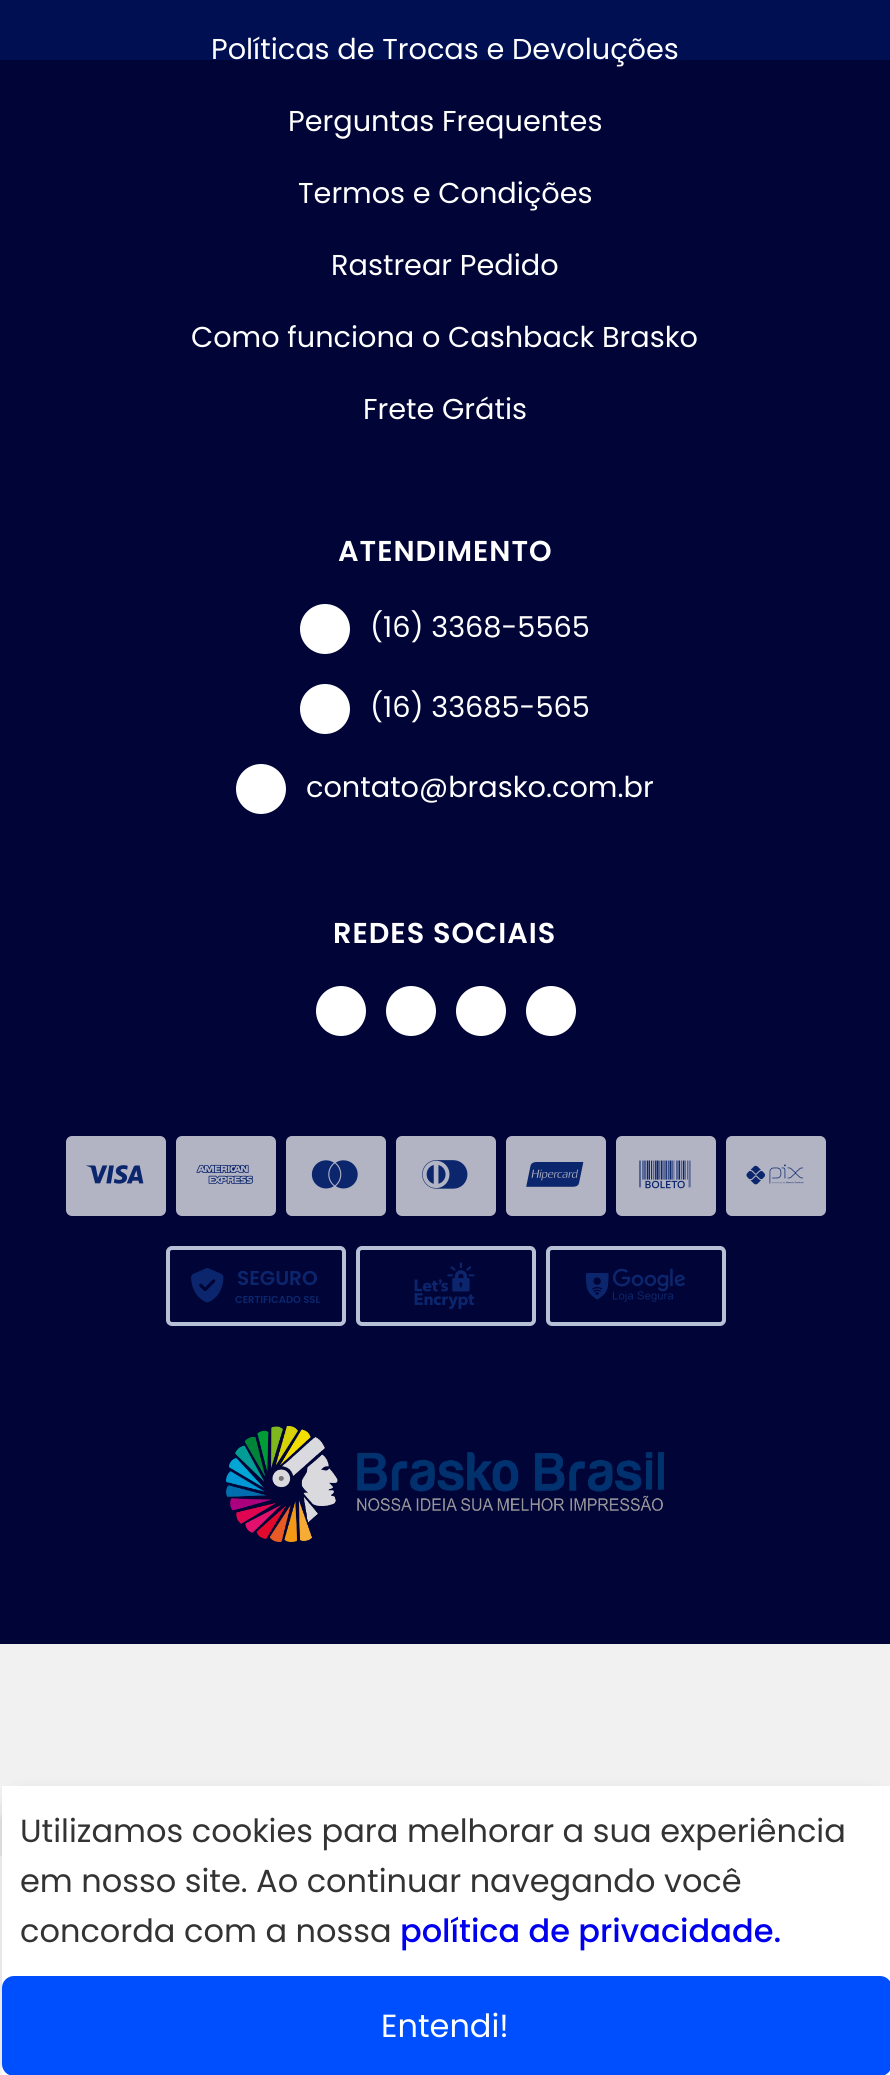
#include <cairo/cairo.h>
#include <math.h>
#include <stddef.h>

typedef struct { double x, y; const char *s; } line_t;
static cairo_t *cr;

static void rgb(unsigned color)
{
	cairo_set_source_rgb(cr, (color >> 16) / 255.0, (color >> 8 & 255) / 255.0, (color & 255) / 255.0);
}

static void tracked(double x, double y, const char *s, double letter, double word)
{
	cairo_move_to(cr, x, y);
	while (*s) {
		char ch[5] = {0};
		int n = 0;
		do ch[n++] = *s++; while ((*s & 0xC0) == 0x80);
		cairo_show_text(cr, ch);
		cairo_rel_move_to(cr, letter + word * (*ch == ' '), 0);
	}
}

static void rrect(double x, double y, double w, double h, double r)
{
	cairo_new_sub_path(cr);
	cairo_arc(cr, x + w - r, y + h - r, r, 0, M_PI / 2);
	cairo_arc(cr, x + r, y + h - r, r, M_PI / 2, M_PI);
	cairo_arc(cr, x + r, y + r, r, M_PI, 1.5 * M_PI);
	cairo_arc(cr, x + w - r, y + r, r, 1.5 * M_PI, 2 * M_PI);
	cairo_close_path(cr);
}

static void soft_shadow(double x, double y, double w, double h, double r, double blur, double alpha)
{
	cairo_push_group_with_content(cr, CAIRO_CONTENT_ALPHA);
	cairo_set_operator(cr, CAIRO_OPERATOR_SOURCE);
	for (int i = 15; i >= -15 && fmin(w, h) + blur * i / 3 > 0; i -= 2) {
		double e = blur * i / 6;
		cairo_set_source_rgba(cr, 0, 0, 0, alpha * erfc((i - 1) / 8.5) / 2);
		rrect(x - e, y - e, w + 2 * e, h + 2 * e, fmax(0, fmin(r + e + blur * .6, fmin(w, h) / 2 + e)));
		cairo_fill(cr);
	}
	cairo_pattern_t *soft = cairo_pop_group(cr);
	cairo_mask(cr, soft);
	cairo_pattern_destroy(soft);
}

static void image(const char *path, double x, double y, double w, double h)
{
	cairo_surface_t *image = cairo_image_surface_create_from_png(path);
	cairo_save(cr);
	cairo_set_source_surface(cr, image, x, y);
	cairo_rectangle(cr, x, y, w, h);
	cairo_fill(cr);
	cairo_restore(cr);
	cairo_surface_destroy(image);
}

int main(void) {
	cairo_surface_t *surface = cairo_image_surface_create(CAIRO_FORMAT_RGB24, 890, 2075);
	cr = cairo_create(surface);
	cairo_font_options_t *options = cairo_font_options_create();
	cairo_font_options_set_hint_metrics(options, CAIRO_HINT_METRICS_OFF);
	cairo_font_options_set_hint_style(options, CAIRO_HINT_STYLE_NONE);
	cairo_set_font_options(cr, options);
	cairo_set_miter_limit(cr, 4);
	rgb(0x000437);
	cairo_paint(cr);
	cairo_set_source_rgba(cr, 0, 0.31, 1, 0.14);
	cairo_rectangle(cr, 0, 0, 890, 60);
	cairo_fill(cr);
	rgb(0xffffff);
	cairo_arc(cr, 325, 629, 25, 0, 2 * M_PI);
	cairo_fill(cr);
	cairo_arc(cr, 325, 709, 25, 0, 2 * M_PI);
	cairo_fill(cr);
	cairo_arc(cr, 261, 789, 25, 0, 2 * M_PI);
	cairo_fill(cr);
	cairo_arc(cr, 341, 1011, 25, 0, 2 * M_PI);
	cairo_fill(cr);
	cairo_arc(cr, 411, 1011, 25, 0, 2 * M_PI);
	cairo_fill(cr);
	cairo_arc(cr, 481, 1011, 25, 0, 2 * M_PI);
	cairo_fill(cr);
	cairo_arc(cr, 551, 1011, 25, 0, 2 * M_PI);
	cairo_fill(cr);
	rgb(0xb3b4c3);
	rrect(66, 1136, 100, 80, 6);
	cairo_fill(cr);
	image("img/1.png", 86, 1165, 58, 19);
	rrect(176, 1136, 100, 80, 6);
	cairo_fill(cr);
	image("img/2.png", 196, 1164, 58, 20);
	rrect(286, 1136, 100, 80, 6);
	cairo_fill(cr);
	image("img/3.png", 311, 1160, 47, 29);
	rrect(396, 1136, 100, 80, 6);
	cairo_fill(cr);
	image("img/4.png", 422, 1160, 46, 29);
	rrect(506, 1136, 100, 80, 6);
	cairo_fill(cr);
	image("img/5.png", 526, 1162, 58, 25);
	rrect(616, 1136, 100, 80, 6);
	cairo_fill(cr);
	image("img/6.png", 639, 1160, 52, 29);
	rrect(726, 1136, 100, 80, 6);
	cairo_fill(cr);
	image("img/7.png", 746, 1164, 58, 21);
	rrect(168, 1248, 176, 76, 4);
	rgb(0xb6c1d6);
	cairo_set_line_width(cr, 4);
	cairo_stroke(cr);
	image("img/8.png", 191, 1268, 33, 35);
	rrect(358, 1248, 176, 76, 4);
	cairo_stroke(cr);
	image("img/9.png", 414, 1262, 61, 47);
	rrect(548, 1248, 176, 76, 4);
	cairo_stroke(cr);
	image("img/10.png", 586, 1268, 99, 34);
	image("img/11.png", 226, 1426, 438, 116);
	rgb(0xf1f1f1);
	cairo_rectangle(cr, 0, 1644, 890, 212);
	cairo_fill(cr);
	rgb(0xffffff);
	cairo_rectangle(cr, 0, 1856, 2, 219);
	cairo_fill(cr);
	rgb(0x000000);
	soft_shadow(22, 1816, 850, 250, 0, 15, 1);
	rgb(0xffffff);
	cairo_rectangle(cr, 2, 1786, 888, 289);
	cairo_fill(cr);
	rgb(0x004fff);
	rrect(2, 1976, 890, 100, 12);
	cairo_fill(cr);
	cairo_select_font_face(cr, "Poppins", CAIRO_FONT_SLANT_NORMAL, CAIRO_FONT_WEIGHT_NORMAL);
	cairo_set_font_size(cr, 28.75);
	rgb(0xffffff);
	{
		static const line_t items[] = {
			{211, 59, "Políticas de Trocas e Devoluções"},
			{288, 131, "Perguntas Frequentes"},
			{298, 203, "Termos e Condições"},
			{331, 275, "Rastrear Pedido"},
			{191, 347, "Como funciona o Cashback Brasko"},
			{363, 419, "Frete Grátis"},
		};
		for (size_t i = 0; i < sizeof items / sizeof *items; i++) {
			cairo_move_to(cr, items[i].x, items[i].y);
			cairo_show_text(cr, items[i].s);
		}
	}
	cairo_select_font_face(cr, "Poppins SemiBold", CAIRO_FONT_SLANT_NORMAL, CAIRO_FONT_WEIGHT_NORMAL);
	tracked(338, 561, "ATENDIMENTO", 1, 0);
	cairo_select_font_face(cr, "Poppins", CAIRO_FONT_SLANT_NORMAL, CAIRO_FONT_WEIGHT_NORMAL);
	{
		static const line_t items[] = {
			{370, 637, "(16) 3368-5565"},
			{370, 717, "(16) 33685-565"},
			{306, 797, "contato@brasko.com.br"},
		};
		for (size_t i = 0; i < sizeof items / sizeof *items; i++) {
			cairo_move_to(cr, items[i].x, items[i].y);
			cairo_show_text(cr, items[i].s);
		}
	}
	cairo_select_font_face(cr, "Poppins SemiBold", CAIRO_FONT_SLANT_NORMAL, CAIRO_FONT_WEIGHT_NORMAL);
	tracked(333, 943, "REDES SOCIAIS", 1, 0);
	cairo_set_font_size(cr, 20);
	rgb(0x0b266d);
	cairo_move_to(cr, 237, 1285);
	cairo_show_text(cr, "SEGURO");
	cairo_set_font_size(cr, 10);
	cairo_move_to(cr, 235, 1303);
	cairo_show_text(cr, "CERTIFICADO SSL");
	cairo_select_font_face(cr, "Poppins", CAIRO_FONT_SLANT_NORMAL, CAIRO_FONT_WEIGHT_NORMAL);
	cairo_set_font_size(cr, 32);
	rgb(0x333333);
	{
		static const line_t items[] = {
			{20, 1842, "Utilizamos cookies para melhorar a sua experiência"},
			{20, 1892, "em nosso site. Ao continuar navegando você"},
			{20, 1942, "concorda com a nossa"},
		};
		for (size_t i = 0; i < sizeof items / sizeof *items; i++) {
			cairo_move_to(cr, items[i].x, items[i].y);
			cairo_show_text(cr, items[i].s);
		}
	}
	cairo_select_font_face(cr, "Poppins Medium", CAIRO_FONT_SLANT_NORMAL, CAIRO_FONT_WEIGHT_NORMAL);
	rgb(0x0000ee);
	cairo_move_to(cr, 400, 1942);
	cairo_show_text(cr, "política de privacidade.");
	cairo_select_font_face(cr, "Poppins", CAIRO_FONT_SLANT_NORMAL, CAIRO_FONT_WEIGHT_NORMAL);
	rgb(0xffffff);
	cairo_move_to(cr, 381, 2037);
	cairo_show_text(cr, "Entendi!");
	cairo_surface_write_to_png(surface, "page.png");
	cairo_font_options_destroy(options);
	cairo_destroy(cr);
	cairo_surface_destroy(surface);
	return 0;
}
